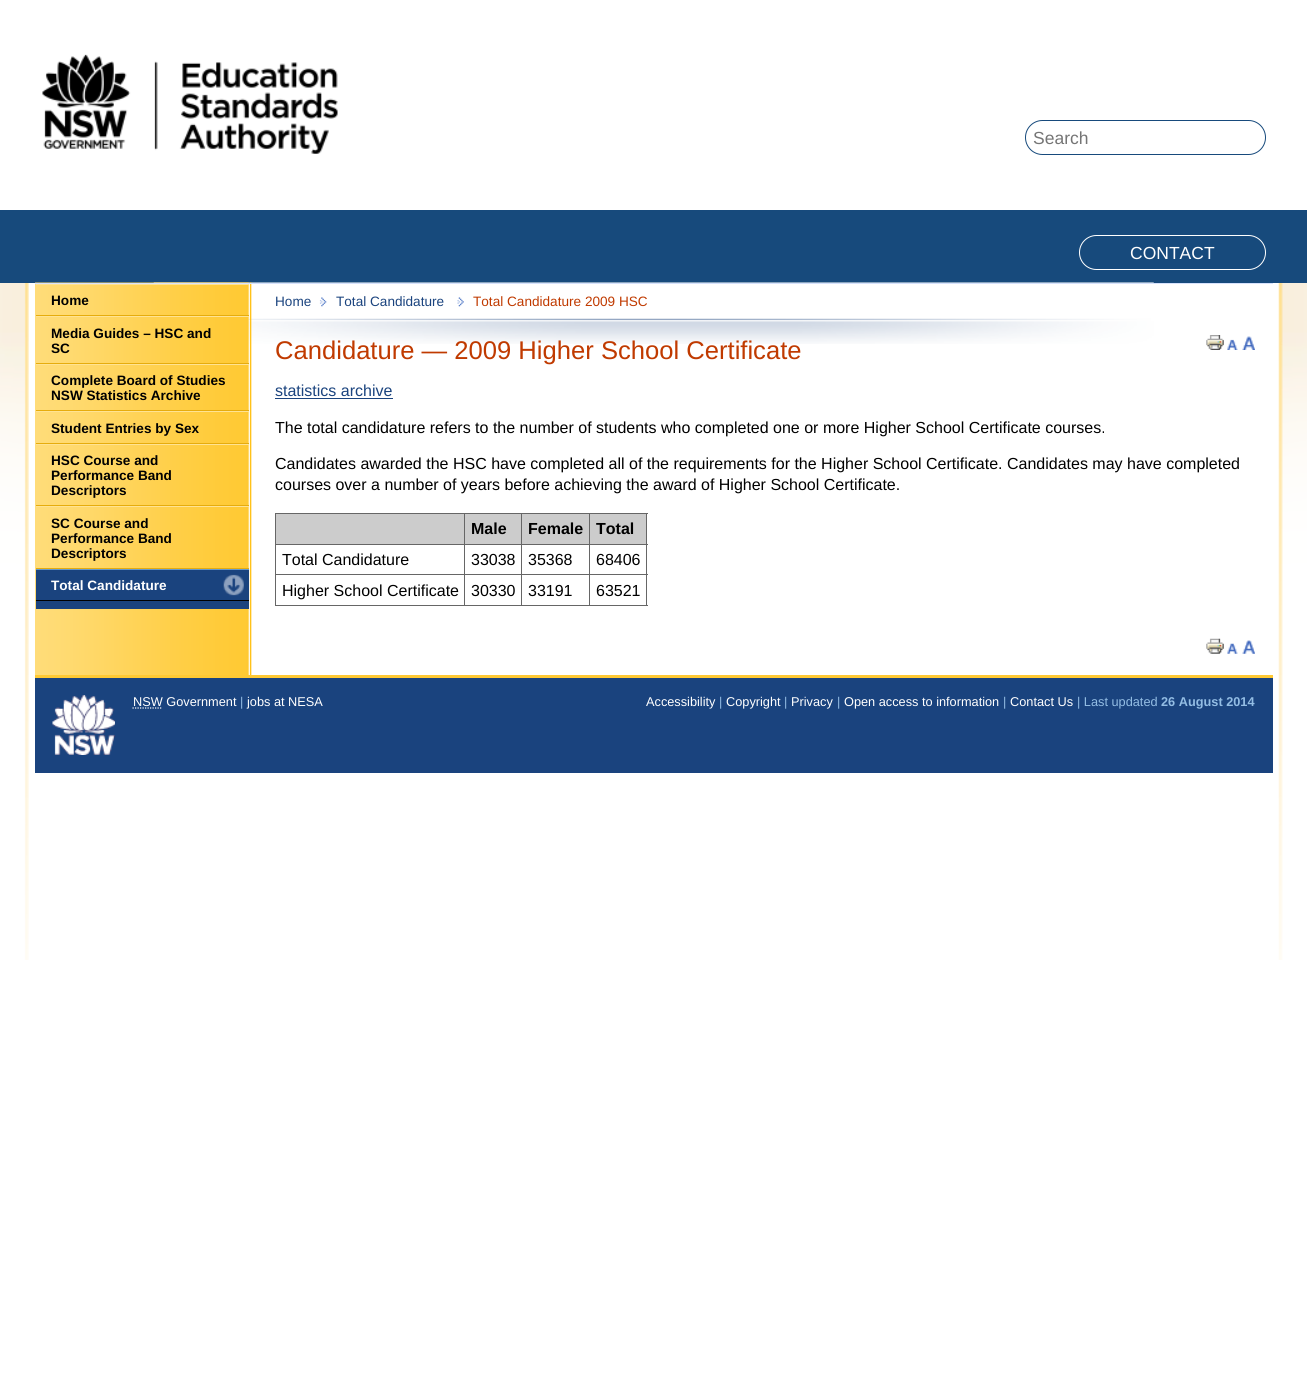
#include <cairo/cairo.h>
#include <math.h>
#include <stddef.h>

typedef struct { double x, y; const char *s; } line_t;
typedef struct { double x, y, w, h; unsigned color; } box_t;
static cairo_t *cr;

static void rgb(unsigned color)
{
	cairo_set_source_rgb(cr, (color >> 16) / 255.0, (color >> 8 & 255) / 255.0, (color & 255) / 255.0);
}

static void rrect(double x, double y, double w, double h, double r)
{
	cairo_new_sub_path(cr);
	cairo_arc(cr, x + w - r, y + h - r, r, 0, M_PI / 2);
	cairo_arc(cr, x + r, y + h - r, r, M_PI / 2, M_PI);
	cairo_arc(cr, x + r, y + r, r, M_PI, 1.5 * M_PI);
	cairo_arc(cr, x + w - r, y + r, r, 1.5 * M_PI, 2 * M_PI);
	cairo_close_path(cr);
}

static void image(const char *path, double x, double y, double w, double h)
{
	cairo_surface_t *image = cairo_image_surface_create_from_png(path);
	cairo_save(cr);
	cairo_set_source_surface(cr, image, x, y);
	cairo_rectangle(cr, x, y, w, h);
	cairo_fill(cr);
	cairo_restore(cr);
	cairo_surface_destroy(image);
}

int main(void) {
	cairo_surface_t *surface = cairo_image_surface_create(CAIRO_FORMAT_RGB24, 1307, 1385);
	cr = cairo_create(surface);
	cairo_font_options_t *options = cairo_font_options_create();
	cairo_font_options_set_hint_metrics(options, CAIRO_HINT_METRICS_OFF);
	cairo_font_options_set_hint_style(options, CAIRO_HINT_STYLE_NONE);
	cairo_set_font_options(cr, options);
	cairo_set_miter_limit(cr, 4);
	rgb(0xffffff);
	cairo_paint(cr);
	image("img/1.png", 0, 283, 1307, 677);
	image("img/2.png", 42, 54, 296, 100);
	rrect(1025.5, 120.5, 240, 34, 17);
	rgb(0x174a7c);
	cairo_set_line_width(cr, 1);
	cairo_stroke(cr);
	cairo_rectangle(cr, 0, 210, 1307, 73);
	cairo_fill(cr);
	rrect(1079.5, 235.5, 186, 34, 17);
	rgb(0xffffff);
	cairo_stroke(cr);
	image("img/3.png", 153, 282, 1001, 62);
	image("img/4.png", 35, 282, 217, 393);
	{
		static const box_t items[] = {
			{35, 283, 1238, 1, 0xd7e2fc},
			{36, 284, 213, 1, 0xffe392},
			{36, 315, 213, 1, 0xe6ac0d},
			{36, 316, 213, 1, 0xffe392},
			{36, 363, 213, 1, 0xe6ac0d},
			{36, 364, 213, 1, 0xffe392},
			{36, 410, 213, 1, 0xe6ac0d},
			{36, 411, 213, 1, 0xffe392},
			{36, 443, 213, 1, 0xe6ac0d},
			{36, 444, 213, 1, 0xffe392},
			{36, 505, 213, 1, 0xe6ac0d},
			{36, 506, 213, 1, 0xffe392},
			{36, 568, 213, 1, 0xe6ac0d},
			{36, 601, 213, 8, 0x1b437e},
			{36, 570, 213, 30, 0x1a437e},
		};
		for (size_t i = 0; i < sizeof items / sizeof *items; i++) {
			rgb(items[i].color);
			cairo_rectangle(cr, items[i].x, items[i].y, items[i].w, items[i].h);
			cairo_fill(cr);
		}
	}
	image("img/5.png", 223, 574, 21, 22);
	rgb(0x6699cc);
	cairo_rectangle(cr, 36, 569, 213, 1);
	cairo_fill(cr);
	rgb(0x000000);
	cairo_rectangle(cr, 36, 600, 213, 1);
	cairo_fill(cr);
	image("img/6.png", 319, 297, 8, 10);
	image("img/7.png", 457, 297, 7, 10);
	image("img/8.png", 1206, 335, 18, 15);
	image("img/9.png", 1227, 339, 11, 11);
	image("img/10.png", 1242, 336, 13, 14);
	{
		static const box_t items[] = {
			{275, 398, 118, 1, 0x1a437e},
			{275, 513, 373, 1, 0x666666},
			{275, 513, 1, 93, 0x666666},
			{276, 514, 188, 30, 0xcccccc},
			{465, 514, 124, 30, 0xcccccc},
			{646, 513, 1, 93, 0x666666},
			{589, 605, 59, 1, 0x666666},
			{589, 574, 1, 32, 0x666666},
			{589, 574, 59, 1, 0x666666},
			{589, 544, 1, 31, 0x666666},
			{589, 544, 59, 1, 0x666666},
			{589, 513, 1, 32, 0x666666},
			{521, 605, 69, 1, 0x666666},
			{521, 574, 1, 32, 0x666666},
			{521, 574, 69, 1, 0x666666},
			{521, 544, 1, 31, 0x666666},
			{521, 544, 69, 1, 0x666666},
			{521, 513, 1, 32, 0x666666},
			{464, 605, 59, 1, 0x666666},
			{464, 574, 1, 32, 0x666666},
			{464, 574, 59, 1, 0x666666},
			{464, 544, 1, 31, 0x666666},
			{464, 544, 59, 1, 0x666666},
			{464, 513, 1, 32, 0x666666},
			{275, 544, 190, 1, 0x666666},
			{590, 514, 56, 30, 0xcccccc},
			{275, 574, 190, 1, 0x666666},
			{275, 605, 190, 1, 0x666666},
		};
		for (size_t i = 0; i < sizeof items / sizeof *items; i++) {
			rgb(items[i].color);
			cairo_rectangle(cr, items[i].x, items[i].y, items[i].w, items[i].h);
			cairo_fill(cr);
		}
	}
	image("img/11.png", 1206, 638, 18, 16);
	image("img/12.png", 1227, 643, 11, 11);
	image("img/13.png", 1242, 640, 13, 14);
	rgb(0x1a437e);
	cairo_rectangle(cr, 35, 678, 1238, 95);
	cairo_fill(cr);
	rgb(0xffc933);
	cairo_rectangle(cr, 35, 675, 1238, 3);
	cairo_fill(cr);
	image("img/14.png", 52, 695, 63, 60);
	cairo_new_path(cr);
	cairo_move_to(cr, 132.5, 708);
	cairo_line_to(cr, 162.5, 708);
	rgb(0xffffff);
	cairo_set_line_width(cr, 1.2);
	cairo_set_dash(cr, (double[]){1.25, 1.25}, 2, 0);
	cairo_stroke(cr);
	cairo_select_font_face(cr, "Liberation Sans", CAIRO_FONT_SLANT_NORMAL, CAIRO_FONT_WEIGHT_NORMAL);
	cairo_set_font_size(cr, 17.5);
	rgb(0x757575);
	cairo_move_to(cr, 1033, 144);
	cairo_show_text(cr, "Search");
	rgb(0xffffff);
	cairo_move_to(cr, 1130, 259);
	cairo_show_text(cr, "CONTACT");
	cairo_select_font_face(cr, "Liberation Sans", CAIRO_FONT_SLANT_NORMAL, CAIRO_FONT_WEIGHT_BOLD);
	cairo_set_font_size(cr, 13.6);
	rgb(0x000000);
	{
		static const line_t items[] = {
			{51, 305, "Home"},
			{51, 338, "Media Guides – HSC and"},
			{51, 353, "SC"},
			{51, 385, "Complete Board of Studies"},
			{51, 400, "NSW Statistics Archive"},
			{51, 433, "Student Entries by Sex"},
			{51, 465, "HSC Course and"},
			{51, 480, "Performance Band"},
			{51, 495, "Descriptors"},
			{51, 528, "SC Course and"},
			{51, 543, "Performance Band"},
			{51, 558, "Descriptors"},
		};
		for (size_t i = 0; i < sizeof items / sizeof *items; i++) {
			cairo_move_to(cr, items[i].x, items[i].y);
			cairo_show_text(cr, items[i].s);
		}
	}
	rgb(0xffffff);
	cairo_move_to(cr, 51, 590);
	cairo_show_text(cr, "Total Candidature");
	cairo_select_font_face(cr, "Liberation Sans", CAIRO_FONT_SLANT_NORMAL, CAIRO_FONT_WEIGHT_NORMAL);
	rgb(0x1a437e);
	cairo_move_to(cr, 275, 306);
	cairo_show_text(cr, "Home");
	cairo_move_to(cr, 336, 306);
	cairo_show_text(cr, "Total Candidature");
	rgb(0xc03a00);
	cairo_move_to(cr, 473, 306);
	cairo_show_text(cr, "Total Candidature 2009 HSC");
	cairo_set_font_size(cr, 25.6);
	cairo_move_to(cr, 275, 359);
	cairo_show_text(cr, "Candidature — 2009 Higher School Certificate");
	cairo_set_font_size(cr, 16);
	rgb(0x1a437e);
	cairo_move_to(cr, 275, 396);
	cairo_show_text(cr, "statistics archive");
	rgb(0x000000);
	{
		static const line_t items[] = {
			{275, 433, "The total candidature refers to the number of students who completed one or more Higher School Certificate courses."},
			{275, 469, "Candidates awarded the HSC have completed all of the requirements for the Higher School Certificate. Candidates may have completed"},
			{275, 490, "courses over a number of years before achieving the award of Higher School Certificate."},
		};
		for (size_t i = 0; i < sizeof items / sizeof *items; i++) {
			cairo_move_to(cr, items[i].x, items[i].y);
			cairo_show_text(cr, items[i].s);
		}
	}
	cairo_select_font_face(cr, "Liberation Sans", CAIRO_FONT_SLANT_NORMAL, CAIRO_FONT_WEIGHT_BOLD);
	{
		static const line_t items[] = {
			{471, 534, "Male"},
			{528, 534, "Female"},
			{596, 534, "Total"},
		};
		for (size_t i = 0; i < sizeof items / sizeof *items; i++) {
			cairo_move_to(cr, items[i].x, items[i].y);
			cairo_show_text(cr, items[i].s);
		}
	}
	cairo_select_font_face(cr, "Liberation Sans", CAIRO_FONT_SLANT_NORMAL, CAIRO_FONT_WEIGHT_NORMAL);
	{
		static const line_t items[] = {
			{282, 565, "Total Candidature"},
			{471, 565, "33038"},
			{528, 565, "35368"},
			{596, 565, "68406"},
			{282, 596, "Higher School Certificate"},
			{471, 596, "30330"},
			{528, 596, "33191"},
			{596, 596, "63521"},
		};
		for (size_t i = 0; i < sizeof items / sizeof *items; i++) {
			cairo_move_to(cr, items[i].x, items[i].y);
			cairo_show_text(cr, items[i].s);
		}
	}
	cairo_set_font_size(cr, 12.75);
	rgb(0xffffff);
	cairo_move_to(cr, 133, 706);
	cairo_show_text(cr, "NSW Government");
	rgb(0x93bde4);
	cairo_move_to(cr, 240, 706);
	cairo_show_text(cr, "|");
	rgb(0xffffff);
	cairo_move_to(cr, 247, 706);
	cairo_show_text(cr, "jobs at NESA");
	cairo_move_to(cr, 646, 706);
	cairo_show_text(cr, "Accessibility");
	rgb(0x93bde4);
	cairo_move_to(cr, 719, 706);
	cairo_show_text(cr, "|");
	rgb(0xffffff);
	cairo_move_to(cr, 726, 706);
	cairo_show_text(cr, "Copyright");
	rgb(0x93bde4);
	cairo_move_to(cr, 784, 706);
	cairo_show_text(cr, "|");
	rgb(0xffffff);
	cairo_move_to(cr, 791, 706);
	cairo_show_text(cr, "Privacy");
	rgb(0x93bde4);
	cairo_move_to(cr, 837, 706);
	cairo_show_text(cr, "|");
	rgb(0xffffff);
	cairo_move_to(cr, 844, 706);
	cairo_show_text(cr, "Open access to information");
	rgb(0x93bde4);
	cairo_move_to(cr, 1003, 706);
	cairo_show_text(cr, "|");
	rgb(0xffffff);
	cairo_move_to(cr, 1010, 706);
	cairo_show_text(cr, "Contact Us");
	rgb(0x93bde4);
	cairo_move_to(cr, 1077, 706);
	cairo_show_text(cr, "| Last updated");
	cairo_select_font_face(cr, "Liberation Sans", CAIRO_FONT_SLANT_NORMAL, CAIRO_FONT_WEIGHT_BOLD);
	cairo_move_to(cr, 1161, 706);
	cairo_show_text(cr, "26 August 2014");
	cairo_surface_write_to_png(surface, "page.png");
	cairo_font_options_destroy(options);
	cairo_destroy(cr);
	cairo_surface_destroy(surface);
	return 0;
}
